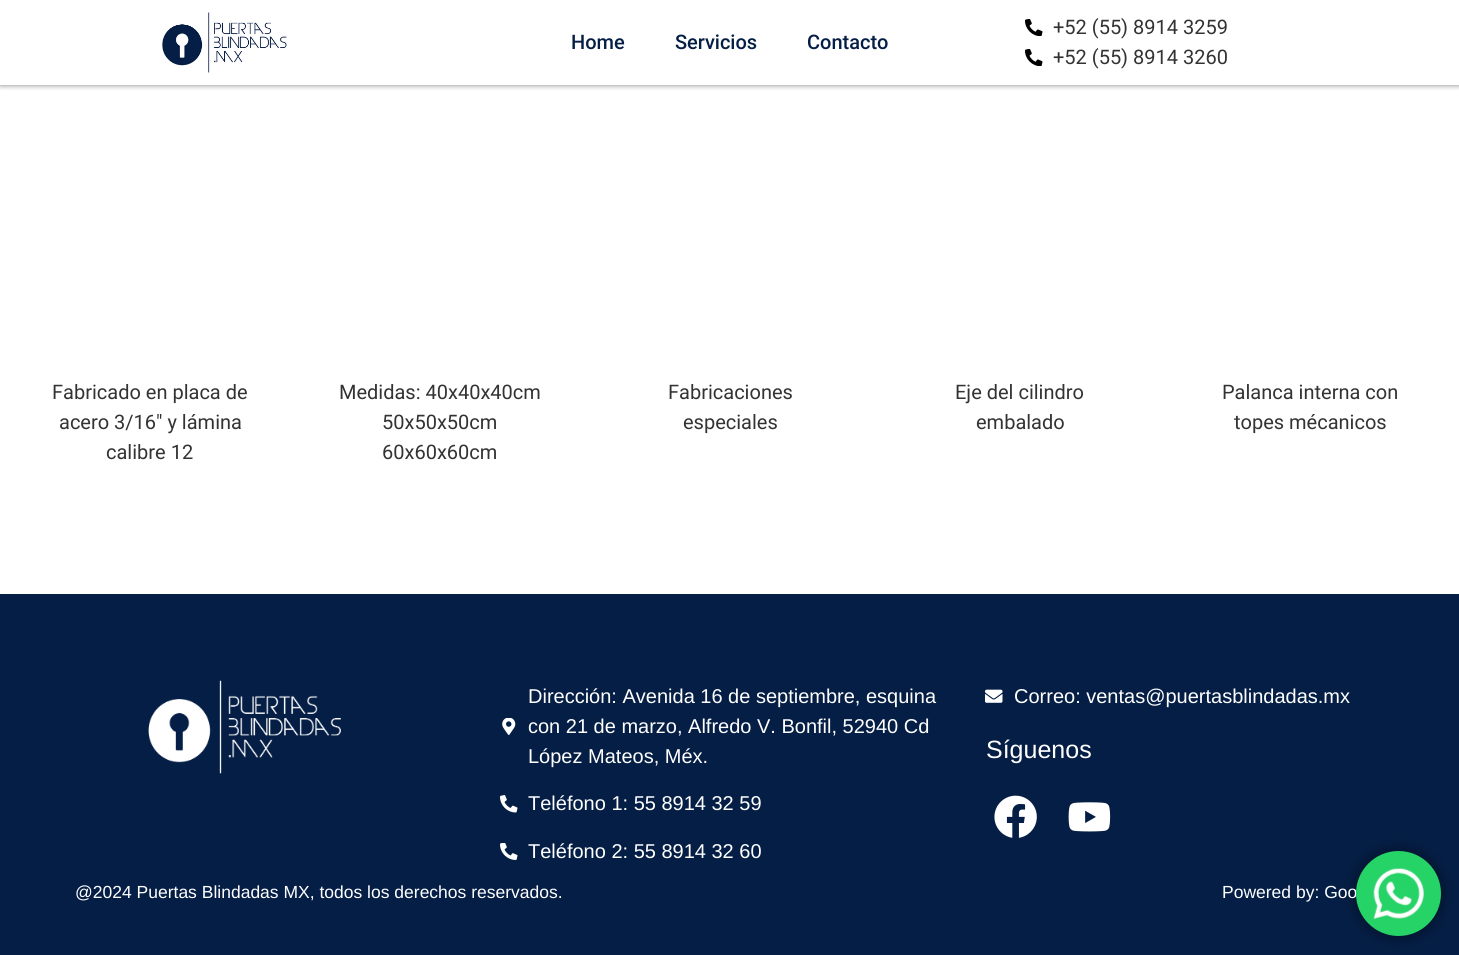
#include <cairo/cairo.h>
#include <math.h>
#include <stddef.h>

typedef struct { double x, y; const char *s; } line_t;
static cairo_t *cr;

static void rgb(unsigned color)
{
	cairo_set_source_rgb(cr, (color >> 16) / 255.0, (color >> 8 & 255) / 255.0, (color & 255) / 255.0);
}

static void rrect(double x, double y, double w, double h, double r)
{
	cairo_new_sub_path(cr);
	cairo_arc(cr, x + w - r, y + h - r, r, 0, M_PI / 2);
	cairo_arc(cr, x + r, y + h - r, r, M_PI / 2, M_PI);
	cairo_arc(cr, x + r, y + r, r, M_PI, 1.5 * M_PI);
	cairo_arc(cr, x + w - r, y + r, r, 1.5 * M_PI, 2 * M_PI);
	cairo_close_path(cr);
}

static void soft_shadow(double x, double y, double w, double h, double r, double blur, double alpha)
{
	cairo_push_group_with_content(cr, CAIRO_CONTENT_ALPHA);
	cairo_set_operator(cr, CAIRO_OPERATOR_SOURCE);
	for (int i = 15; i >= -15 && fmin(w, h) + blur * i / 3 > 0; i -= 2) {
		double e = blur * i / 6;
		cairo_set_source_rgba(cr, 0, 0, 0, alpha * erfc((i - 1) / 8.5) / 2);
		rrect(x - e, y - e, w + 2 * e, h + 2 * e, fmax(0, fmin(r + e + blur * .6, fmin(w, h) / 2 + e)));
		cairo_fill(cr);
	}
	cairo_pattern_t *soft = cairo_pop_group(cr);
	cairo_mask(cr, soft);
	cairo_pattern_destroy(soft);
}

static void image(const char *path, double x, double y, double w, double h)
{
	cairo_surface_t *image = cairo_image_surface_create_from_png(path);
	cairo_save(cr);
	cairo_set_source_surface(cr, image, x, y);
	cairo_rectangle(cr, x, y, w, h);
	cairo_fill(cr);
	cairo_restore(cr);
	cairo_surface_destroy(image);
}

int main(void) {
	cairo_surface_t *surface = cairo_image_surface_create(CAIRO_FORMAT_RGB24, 1459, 955);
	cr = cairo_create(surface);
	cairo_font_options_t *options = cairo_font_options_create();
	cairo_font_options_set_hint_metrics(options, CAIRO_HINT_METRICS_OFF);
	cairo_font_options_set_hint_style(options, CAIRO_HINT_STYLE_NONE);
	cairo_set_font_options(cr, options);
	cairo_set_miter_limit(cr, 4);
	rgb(0xffffff);
	cairo_paint(cr);
	cairo_save(cr);
	cairo_rectangle(cr, 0, 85, 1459, 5);
	cairo_clip(cr);
	rgb(0x000000);
	soft_shadow(0, 0, 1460, 85, 0, 3, 0.5);
	cairo_restore(cr);
	image("img/1.png", 162, 12, 125, 61);
	image("img/2.png", 1025, 19, 18, 17);
	image("img/2.png", 1025, 49, 18, 17);
	rgb(0x051e45);
	cairo_rectangle(cr, 0, 594, 1459, 361);
	cairo_fill(cr);
	image("img/3.png", 148, 680, 193, 94);
	image("img/4.png", 502, 718, 14, 17);
	image("img/5.png", 500, 795, 18, 18);
	image("img/6.png", 500, 843, 18, 17);
	image("img/7.png", 985, 689, 18, 14);
	image("img/8.png", 994, 795, 43, 43);
	image("img/9.png", 1068, 802, 43, 30);
	rgb(0x000000);
	soft_shadow(1356, 851, 85, 85, 42.5, 7, 0.5);
	cairo_select_font_face(cr, "Roboto Medium", CAIRO_FONT_SLANT_NORMAL, CAIRO_FONT_WEIGHT_NORMAL);
	cairo_set_font_size(cr, 20);
	rgb(0x051e45);
	{
		static const line_t items[] = {
			{571, 49, "Home"},
			{675, 49, "Servicios"},
			{807, 49, "Contacto"},
		};
		for (size_t i = 0; i < sizeof items / sizeof *items; i++) {
			cairo_move_to(cr, items[i].x, items[i].y);
			cairo_show_text(cr, items[i].s);
		}
	}
	cairo_select_font_face(cr, "Roboto", CAIRO_FONT_SLANT_NORMAL, CAIRO_FONT_WEIGHT_NORMAL);
	rgb(0x333333);
	{
		static const line_t items[] = {
			{1053, 34, "+52 (55) 8914 3259"},
			{1053, 64, "+52 (55) 8914 3260"},
			{52, 399, "Fabricado en placa de"},
			{59, 429, "acero 3/16\" y lámina"},
			{106, 459, "calibre 12"},
			{339, 399, "Medidas: 40x40x40cm"},
			{382, 429, "50x50x50cm"},
			{382, 459, "60x60x60cm"},
			{668, 399, "Fabricaciones"},
			{683, 429, "especiales"},
			{955, 399, "Eje del cilindro"},
			{976, 429, "embalado"},
			{1222, 399, "Palanca interna con"},
			{1234, 429, "topes mécanicos"},
		};
		for (size_t i = 0; i < sizeof items / sizeof *items; i++) {
			cairo_move_to(cr, items[i].x, items[i].y);
			cairo_show_text(cr, items[i].s);
		}
	}
	cairo_select_font_face(cr, "Liberation Sans", CAIRO_FONT_SLANT_NORMAL, CAIRO_FONT_WEIGHT_NORMAL);
	rgb(0xffffff);
	{
		static const line_t items[] = {
			{528, 703, "Dirección: Avenida 16 de septiembre, esquina"},
			{528, 733, "con 21 de marzo, Alfredo V. Bonfil, 52940 Cd"},
			{528, 763, "López Mateos, Méx."},
			{528, 810, "Teléfono 1: 55 8914 32 59"},
			{528, 858, "Teléfono 2: 55 8914 32 60"},
			{1014, 703, "Correo: ventas@puertasblindadas.mx"},
		};
		for (size_t i = 0; i < sizeof items / sizeof *items; i++) {
			cairo_move_to(cr, items[i].x, items[i].y);
			cairo_show_text(cr, items[i].s);
		}
	}
	cairo_set_font_size(cr, 25);
	cairo_move_to(cr, 986, 758);
	cairo_show_text(cr, "Síguenos");
	cairo_set_font_size(cr, 17.5);
	cairo_move_to(cr, 75, 898);
	cairo_show_text(cr, "@2024 Puertas Blindadas MX, todos los derechos reservados.");
	cairo_move_to(cr, 1222, 898);
	cairo_show_text(cr, "Powered by: Goo");
	rgb(0x25d366);
	cairo_new_path(cr);
	cairo_arc(cr, 1398.5, 893.5, 42.5, 0, 2 * M_PI);
	cairo_fill(cr);
	image("img/10.png", 1373, 868, 51, 51);
	cairo_surface_write_to_png(surface, "page.png");
	cairo_font_options_destroy(options);
	cairo_destroy(cr);
	cairo_surface_destroy(surface);
	return 0;
}
